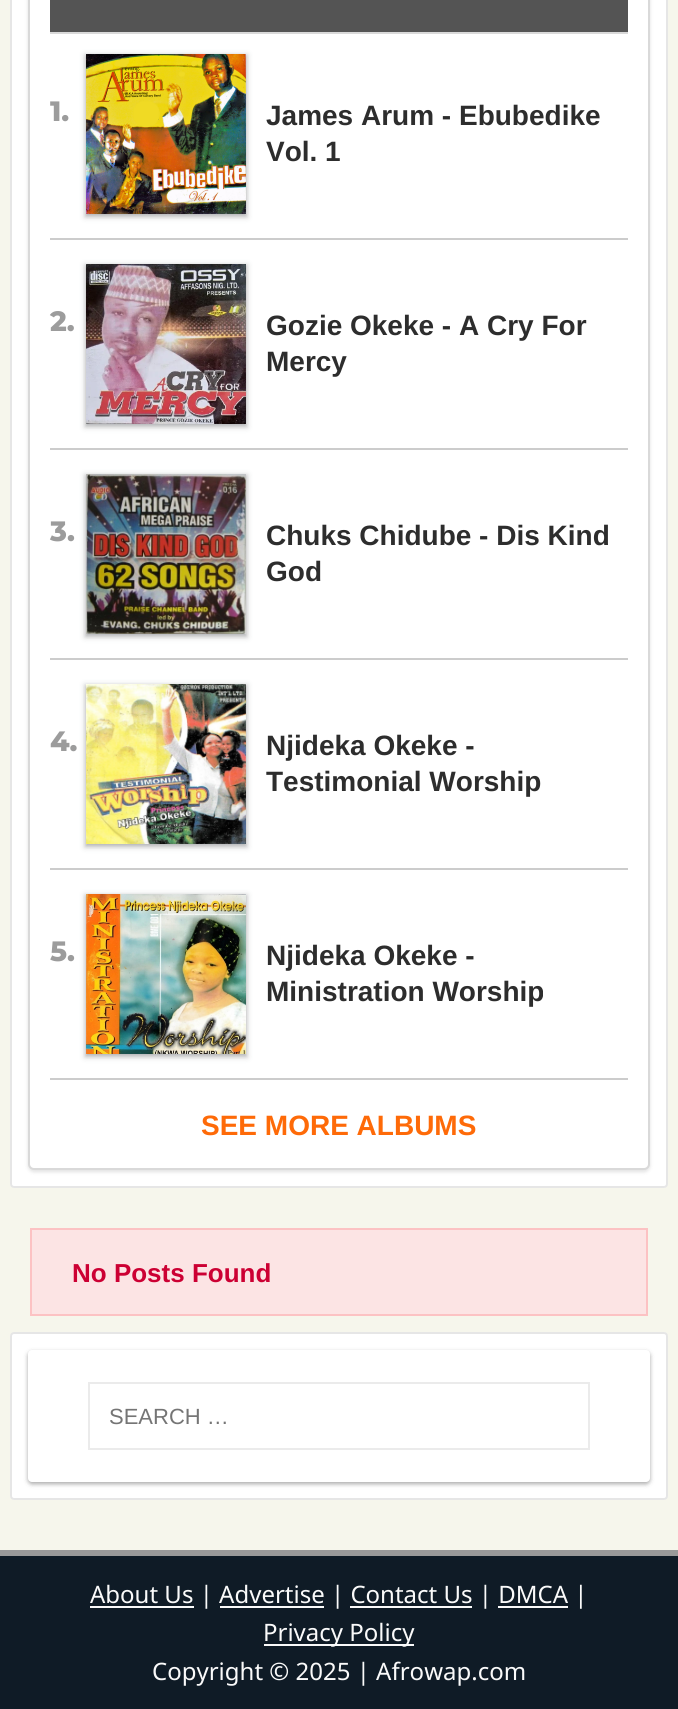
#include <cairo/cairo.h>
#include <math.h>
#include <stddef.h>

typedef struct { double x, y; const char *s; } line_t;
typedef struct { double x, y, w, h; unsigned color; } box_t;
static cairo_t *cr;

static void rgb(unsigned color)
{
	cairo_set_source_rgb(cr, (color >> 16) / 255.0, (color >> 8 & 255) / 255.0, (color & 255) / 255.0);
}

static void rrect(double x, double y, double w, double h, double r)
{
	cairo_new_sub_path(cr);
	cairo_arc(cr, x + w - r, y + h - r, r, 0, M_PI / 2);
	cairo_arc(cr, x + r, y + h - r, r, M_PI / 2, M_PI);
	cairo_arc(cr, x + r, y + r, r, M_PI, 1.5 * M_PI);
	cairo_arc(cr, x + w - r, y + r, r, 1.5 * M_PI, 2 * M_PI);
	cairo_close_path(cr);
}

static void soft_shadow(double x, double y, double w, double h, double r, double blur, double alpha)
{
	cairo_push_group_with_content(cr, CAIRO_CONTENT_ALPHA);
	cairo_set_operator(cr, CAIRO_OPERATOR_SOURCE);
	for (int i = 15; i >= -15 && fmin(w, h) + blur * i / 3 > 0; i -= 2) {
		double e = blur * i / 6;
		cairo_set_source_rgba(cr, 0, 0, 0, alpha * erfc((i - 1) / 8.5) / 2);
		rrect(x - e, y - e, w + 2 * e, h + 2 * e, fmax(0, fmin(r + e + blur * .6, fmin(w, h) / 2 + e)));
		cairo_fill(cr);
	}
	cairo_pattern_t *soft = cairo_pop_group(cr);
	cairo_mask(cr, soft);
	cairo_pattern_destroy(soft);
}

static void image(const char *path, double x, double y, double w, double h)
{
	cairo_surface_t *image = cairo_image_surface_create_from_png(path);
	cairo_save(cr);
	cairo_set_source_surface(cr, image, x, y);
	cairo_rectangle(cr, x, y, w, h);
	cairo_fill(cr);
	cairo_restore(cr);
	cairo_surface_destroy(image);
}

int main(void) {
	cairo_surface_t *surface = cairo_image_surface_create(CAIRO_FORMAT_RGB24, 678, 1709);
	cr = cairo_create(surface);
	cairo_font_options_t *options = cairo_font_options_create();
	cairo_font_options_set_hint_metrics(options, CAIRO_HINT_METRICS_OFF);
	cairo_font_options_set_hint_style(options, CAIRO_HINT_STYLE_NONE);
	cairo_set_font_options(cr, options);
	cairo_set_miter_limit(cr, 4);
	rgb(0xf6f6ec);
	cairo_paint(cr);
	rgb(0xffffff);
	rrect(10, -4, 658, 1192, 4);
	cairo_fill(cr);
	rrect(11, -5, 656, 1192, 3);
	cairo_set_source_rgba(cr, 0, 0, 0, 0.1);
	cairo_stroke(cr);
	rgb(0x000000);
	soft_shadow(28, -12, 622, 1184, 6, 2, 0.12);
	rgb(0xffffff);
	rrect(29, -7, 620, 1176, 5);
	cairo_fill_preserve(cr);
	rgb(0xd9d9d9);
	cairo_stroke(cr);
	{
		static const box_t items[] = {
			{50, 0, 578, 32, 0x545454},
			{50, 32, 578, 2, 0xd9d9d9},
			{50, 238, 578, 2, 0xcccccc},
		};
		for (size_t i = 0; i < sizeof items / sizeof *items; i++) {
			rgb(items[i].color);
			cairo_rectangle(cr, items[i].x, items[i].y, items[i].w, items[i].h);
			cairo_fill(cr);
		}
	}
	rgb(0x3c4043);
	soft_shadow(84, 54, 164, 164, 0, 3, 0.15);
	soft_shadow(86, 56, 160, 160, 0, 2, 0.3);
	image("img/1.png", 86, 54, 160, 160);
	rgb(0xcccccc);
	cairo_rectangle(cr, 50, 448, 578, 2);
	cairo_fill(cr);
	rgb(0x3c4043);
	soft_shadow(84, 264, 164, 164, 0, 3, 0.15);
	soft_shadow(86, 266, 160, 160, 0, 2, 0.3);
	image("img/2.png", 86, 264, 160, 160);
	rgb(0xcccccc);
	cairo_rectangle(cr, 50, 658, 578, 2);
	cairo_fill(cr);
	rgb(0x3c4043);
	soft_shadow(84, 474, 164, 164, 0, 3, 0.15);
	soft_shadow(86, 476, 160, 160, 0, 2, 0.3);
	image("img/3.png", 86, 474, 160, 160);
	rgb(0xcccccc);
	cairo_rectangle(cr, 50, 868, 578, 2);
	cairo_fill(cr);
	rgb(0x3c4043);
	soft_shadow(84, 684, 164, 164, 0, 3, 0.15);
	soft_shadow(86, 686, 160, 160, 0, 2, 0.3);
	image("img/4.png", 86, 684, 160, 160);
	rgb(0xcccccc);
	cairo_rectangle(cr, 50, 1078, 578, 2);
	cairo_fill(cr);
	rgb(0x3c4043);
	soft_shadow(84, 894, 164, 164, 0, 3, 0.15);
	soft_shadow(86, 896, 160, 160, 0, 2, 0.3);
	image("img/5.png", 86, 894, 160, 160);
	rgb(0xfce4e4);
	cairo_rectangle(cr, 31, 1229, 616, 86);
	cairo_fill_preserve(cr);
	rgb(0xfcc2c3);
	cairo_stroke(cr);
	rgb(0xffffff);
	rrect(10, 1332, 658, 168, 4);
	cairo_fill(cr);
	rrect(11, 1333, 656, 166, 3);
	cairo_set_source_rgba(cr, 0, 0, 0, 0.1);
	cairo_stroke(cr);
	rgb(0x000000);
	soft_shadow(28, 1352, 622, 132, 4, 2, 0.24);
	soft_shadow(28, 1352, 622, 132, 4, 3, 0.12);
	rgb(0xffffff);
	rrect(28, 1350, 622, 132, 4);
	cairo_fill(cr);
	cairo_rectangle(cr, 89, 1383, 500, 66);
	rgb(0xebebeb);
	cairo_stroke(cr);
	{
		static const box_t items[] = {
			{0, 1556, 678, 153, 0x0f1b26},
			{0, 1550, 678, 6, 0x999999},
			{90, 1606, 104, 2, 0xfafafa},
			{220, 1606, 104, 2, 0xfafafa},
			{350, 1606, 122, 2, 0xfafafa},
			{498, 1606, 70, 2, 0xfafafa},
			{264, 1644, 150, 2, 0xfafafa},
		};
		for (size_t i = 0; i < sizeof items / sizeof *items; i++) {
			rgb(items[i].color);
			cairo_rectangle(cr, items[i].x, items[i].y, items[i].w, items[i].h);
			cairo_fill(cr);
		}
	}
	cairo_select_font_face(cr, "Montserrat ExtraBold", CAIRO_FONT_SLANT_NORMAL, CAIRO_FONT_WEIGHT_NORMAL);
	cairo_set_font_size(cr, 28);
	rgb(0x9c9c9c);
	cairo_move_to(cr, 50, 121);
	cairo_show_text(cr, "1.");
	cairo_select_font_face(cr, "Liberation Sans", CAIRO_FONT_SLANT_NORMAL, CAIRO_FONT_WEIGHT_BOLD);
	rgb(0x2d2d2d);
	cairo_move_to(cr, 266, 125);
	cairo_show_text(cr, "James Arum - Ebubedike");
	cairo_move_to(cr, 266, 161);
	cairo_show_text(cr, "Vol. 1");
	cairo_select_font_face(cr, "Montserrat ExtraBold", CAIRO_FONT_SLANT_NORMAL, CAIRO_FONT_WEIGHT_NORMAL);
	rgb(0x9c9c9c);
	cairo_move_to(cr, 50, 331);
	cairo_show_text(cr, "2.");
	cairo_select_font_face(cr, "Liberation Sans", CAIRO_FONT_SLANT_NORMAL, CAIRO_FONT_WEIGHT_BOLD);
	rgb(0x2d2d2d);
	cairo_move_to(cr, 266, 335);
	cairo_show_text(cr, "Gozie Okeke - A Cry For");
	cairo_move_to(cr, 266, 371);
	cairo_show_text(cr, "Mercy");
	cairo_select_font_face(cr, "Montserrat ExtraBold", CAIRO_FONT_SLANT_NORMAL, CAIRO_FONT_WEIGHT_NORMAL);
	rgb(0x9c9c9c);
	cairo_move_to(cr, 50, 541);
	cairo_show_text(cr, "3.");
	cairo_select_font_face(cr, "Liberation Sans", CAIRO_FONT_SLANT_NORMAL, CAIRO_FONT_WEIGHT_BOLD);
	rgb(0x2d2d2d);
	cairo_move_to(cr, 266, 545);
	cairo_show_text(cr, "Chuks Chidube - Dis Kind");
	cairo_move_to(cr, 266, 581);
	cairo_show_text(cr, "God");
	cairo_select_font_face(cr, "Montserrat ExtraBold", CAIRO_FONT_SLANT_NORMAL, CAIRO_FONT_WEIGHT_NORMAL);
	rgb(0x9c9c9c);
	cairo_move_to(cr, 50, 751);
	cairo_show_text(cr, "4.");
	cairo_select_font_face(cr, "Liberation Sans", CAIRO_FONT_SLANT_NORMAL, CAIRO_FONT_WEIGHT_BOLD);
	rgb(0x2d2d2d);
	cairo_move_to(cr, 266, 755);
	cairo_show_text(cr, "Njideka Okeke -");
	cairo_move_to(cr, 266, 791);
	cairo_show_text(cr, "Testimonial Worship");
	cairo_select_font_face(cr, "Montserrat ExtraBold", CAIRO_FONT_SLANT_NORMAL, CAIRO_FONT_WEIGHT_NORMAL);
	rgb(0x9c9c9c);
	cairo_move_to(cr, 50, 961);
	cairo_show_text(cr, "5.");
	cairo_select_font_face(cr, "Liberation Sans", CAIRO_FONT_SLANT_NORMAL, CAIRO_FONT_WEIGHT_BOLD);
	rgb(0x2d2d2d);
	cairo_move_to(cr, 266, 965);
	cairo_show_text(cr, "Njideka Okeke -");
	cairo_move_to(cr, 266, 1001);
	cairo_show_text(cr, "Ministration Worship");
	rgb(0xfe6a08);
	cairo_move_to(cr, 201, 1135);
	cairo_show_text(cr, "SEE MORE ALBUMS");
	cairo_set_font_size(cr, 26);
	rgb(0xcc0033);
	cairo_move_to(cr, 72, 1282);
	cairo_show_text(cr, "No Posts Found");
	cairo_select_font_face(cr, "Liberation Sans", CAIRO_FONT_SLANT_NORMAL, CAIRO_FONT_WEIGHT_NORMAL);
	cairo_set_font_size(cr, 22);
	rgb(0x757575);
	cairo_move_to(cr, 109, 1424);
	cairo_show_text(cr, "SEARCH …");
	cairo_select_font_face(cr, "Noto Sans", CAIRO_FONT_SLANT_NORMAL, CAIRO_FONT_WEIGHT_NORMAL);
	cairo_set_font_size(cr, 24);
	rgb(0xfafafa);
	{
		static const line_t items[] = {
			{90, 1603, "About Us | Advertise | Contact Us | DMCA |"},
			{263, 1641, "Privacy Policy"},
			{152, 1680, "Copyright © 2025 | Afrowap.com"},
		};
		for (size_t i = 0; i < sizeof items / sizeof *items; i++) {
			cairo_move_to(cr, items[i].x, items[i].y);
			cairo_show_text(cr, items[i].s);
		}
	}
	cairo_surface_write_to_png(surface, "page.png");
	cairo_font_options_destroy(options);
	cairo_destroy(cr);
	cairo_surface_destroy(surface);
	return 0;
}
